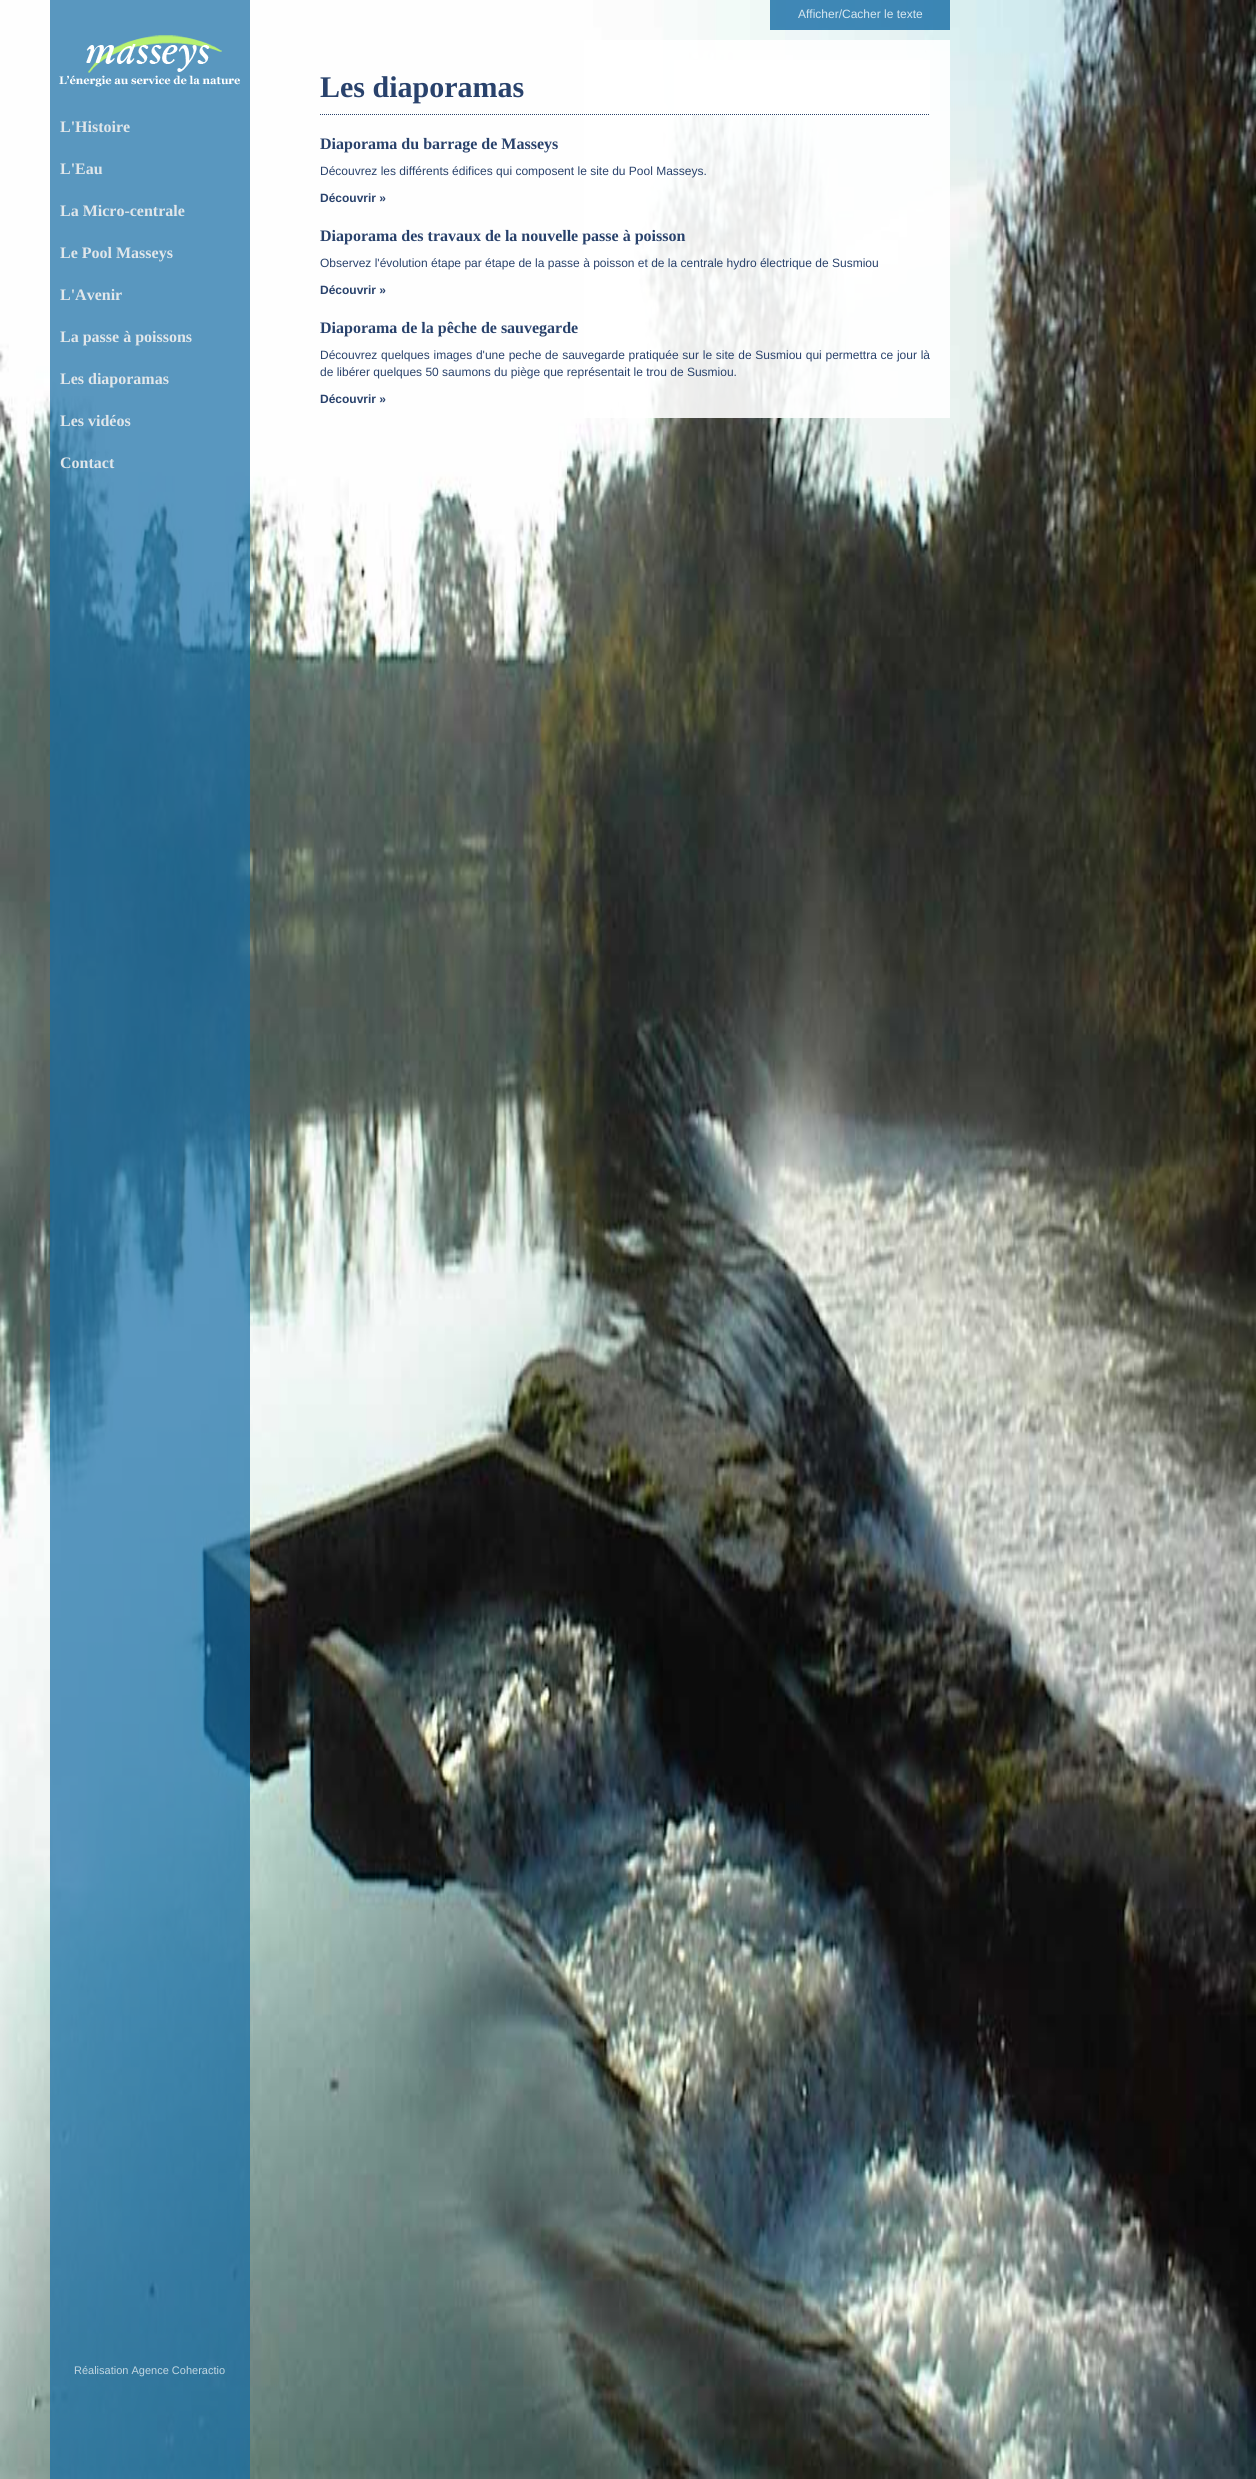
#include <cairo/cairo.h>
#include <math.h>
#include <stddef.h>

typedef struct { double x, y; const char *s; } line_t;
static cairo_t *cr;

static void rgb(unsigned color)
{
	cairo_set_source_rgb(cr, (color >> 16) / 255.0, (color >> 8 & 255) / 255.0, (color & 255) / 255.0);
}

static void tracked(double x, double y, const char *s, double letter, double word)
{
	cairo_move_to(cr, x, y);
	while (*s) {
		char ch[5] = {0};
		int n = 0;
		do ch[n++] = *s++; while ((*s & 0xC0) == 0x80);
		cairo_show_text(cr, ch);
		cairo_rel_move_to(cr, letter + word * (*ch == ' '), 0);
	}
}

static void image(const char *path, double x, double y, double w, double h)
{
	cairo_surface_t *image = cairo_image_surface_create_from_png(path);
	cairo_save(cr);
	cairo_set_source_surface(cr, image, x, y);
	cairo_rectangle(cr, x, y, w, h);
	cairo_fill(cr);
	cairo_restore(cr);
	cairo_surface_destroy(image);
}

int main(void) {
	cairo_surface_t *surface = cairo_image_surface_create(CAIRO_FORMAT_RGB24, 1256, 2479);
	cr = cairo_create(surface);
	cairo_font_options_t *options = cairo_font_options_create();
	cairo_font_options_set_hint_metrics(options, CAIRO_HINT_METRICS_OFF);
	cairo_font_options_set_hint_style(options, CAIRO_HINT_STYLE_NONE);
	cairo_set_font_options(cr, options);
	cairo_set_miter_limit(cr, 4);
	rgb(0xffffff);
	cairo_paint(cr);
	image("img/1.png", 0, 0, 1256, 2479);
	cairo_set_source_rgba(cr, 0.075, 0.424, 0.647, 0.7);
	cairo_rectangle(cr, 50, 0, 200, 2479);
	cairo_fill(cr);
	cairo_set_source_rgba(cr, 0.075, 0.424, 0.647, 0.8);
	cairo_rectangle(cr, 770, 0, 180, 30);
	cairo_fill(cr);
	image("img/2.png", 59, 35, 181, 52);
	cairo_set_source_rgba(cr, 1, 1, 1, 0.9);
	cairo_rectangle(cr, 584, 40, 366, 378);
	cairo_fill(cr);
	rgb(0xffffff);
	cairo_rectangle(cr, 674, 60, 256, 55);
	cairo_fill(cr);
	cairo_new_path(cr);
	cairo_move_to(cr, 320, 114.5);
	cairo_line_to(cr, 930, 114.5);
	rgb(0x29426c);
	cairo_set_line_width(cr, 1);
	cairo_set_dash(cr, (double[]){1, 1}, 2, 0);
	cairo_stroke(cr);
	cairo_select_font_face(cr, "Liberation Sans", CAIRO_FONT_SLANT_NORMAL, CAIRO_FONT_WEIGHT_NORMAL);
	cairo_set_font_size(cr, 12);
	rgb(0xd8e7f0);
	cairo_move_to(cr, 798, 18);
	cairo_show_text(cr, "Afficher/Cacher le texte");
	cairo_select_font_face(cr, "Liberation Serif", CAIRO_FONT_SLANT_NORMAL, CAIRO_FONT_WEIGHT_BOLD);
	cairo_set_font_size(cr, 16);
	rgb(0xe0e6ea);
	{
		static const line_t items[] = {
			{60, 132, "L'Histoire"},
			{60, 174, "L'Eau"},
			{60, 216, "La Micro-centrale"},
			{60, 258, "Le Pool Masseys"},
			{60, 300, "L'Avenir"},
			{60, 342, "La passe à poissons"},
			{60, 384, "Les diaporamas"},
			{60, 426, "Les vidéos"},
			{60, 468, "Contact"},
		};
		for (size_t i = 0; i < sizeof items / sizeof *items; i++) {
			cairo_move_to(cr, items[i].x, items[i].y);
			cairo_show_text(cr, items[i].s);
		}
	}
	cairo_select_font_face(cr, "Liberation Sans", CAIRO_FONT_SLANT_NORMAL, CAIRO_FONT_WEIGHT_NORMAL);
	cairo_set_font_size(cr, 11);
	rgb(0xc2d7e2);
	cairo_move_to(cr, 74, 2374);
	cairo_show_text(cr, "Réalisation Agence Coheractio");
	cairo_select_font_face(cr, "Liberation Serif", CAIRO_FONT_SLANT_NORMAL, CAIRO_FONT_WEIGHT_BOLD);
	cairo_set_font_size(cr, 30);
	rgb(0x29426c);
	cairo_move_to(cr, 320, 97);
	cairo_show_text(cr, "Les diaporamas");
	cairo_set_font_size(cr, 16);
	cairo_move_to(cr, 320, 149);
	cairo_show_text(cr, "Diaporama du barrage de Masseys");
	cairo_select_font_face(cr, "Liberation Sans", CAIRO_FONT_SLANT_NORMAL, CAIRO_FONT_WEIGHT_NORMAL);
	cairo_set_font_size(cr, 12);
	cairo_move_to(cr, 320, 175);
	cairo_show_text(cr, "Découvrez les différents édifices qui composent le site du Pool Masseys.");
	cairo_select_font_face(cr, "Liberation Sans", CAIRO_FONT_SLANT_NORMAL, CAIRO_FONT_WEIGHT_BOLD);
	cairo_move_to(cr, 320, 202);
	cairo_show_text(cr, "Découvrir »");
	cairo_select_font_face(cr, "Liberation Serif", CAIRO_FONT_SLANT_NORMAL, CAIRO_FONT_WEIGHT_BOLD);
	cairo_set_font_size(cr, 16);
	cairo_move_to(cr, 320, 241);
	cairo_show_text(cr, "Diaporama des travaux de la nouvelle passe à poisson");
	cairo_select_font_face(cr, "Liberation Sans", CAIRO_FONT_SLANT_NORMAL, CAIRO_FONT_WEIGHT_NORMAL);
	cairo_set_font_size(cr, 12);
	cairo_move_to(cr, 320, 267);
	cairo_show_text(cr, "Observez l'évolution étape par étape de la passe à poisson et de la centrale hydro électrique de Susmiou");
	cairo_select_font_face(cr, "Liberation Sans", CAIRO_FONT_SLANT_NORMAL, CAIRO_FONT_WEIGHT_BOLD);
	cairo_move_to(cr, 320, 294);
	cairo_show_text(cr, "Découvrir »");
	cairo_select_font_face(cr, "Liberation Serif", CAIRO_FONT_SLANT_NORMAL, CAIRO_FONT_WEIGHT_BOLD);
	cairo_set_font_size(cr, 16);
	cairo_move_to(cr, 320, 333);
	cairo_show_text(cr, "Diaporama de la pêche de sauvegarde");
	cairo_select_font_face(cr, "Liberation Sans", CAIRO_FONT_SLANT_NORMAL, CAIRO_FONT_WEIGHT_NORMAL);
	cairo_set_font_size(cr, 12);
	tracked(320, 359, "Découvrez quelques images d'une peche de sauvegarde pratiquée sur le site de Susmiou qui permettra ce jour là", 0, 0.4);
	cairo_move_to(cr, 320, 376);
	cairo_show_text(cr, "de libérer quelques 50 saumons du piège que représentait le trou de Susmiou.");
	cairo_select_font_face(cr, "Liberation Sans", CAIRO_FONT_SLANT_NORMAL, CAIRO_FONT_WEIGHT_BOLD);
	cairo_move_to(cr, 320, 403);
	cairo_show_text(cr, "Découvrir »");
	cairo_surface_write_to_png(surface, "page.png");
	cairo_font_options_destroy(options);
	cairo_destroy(cr);
	cairo_surface_destroy(surface);
	return 0;
}
